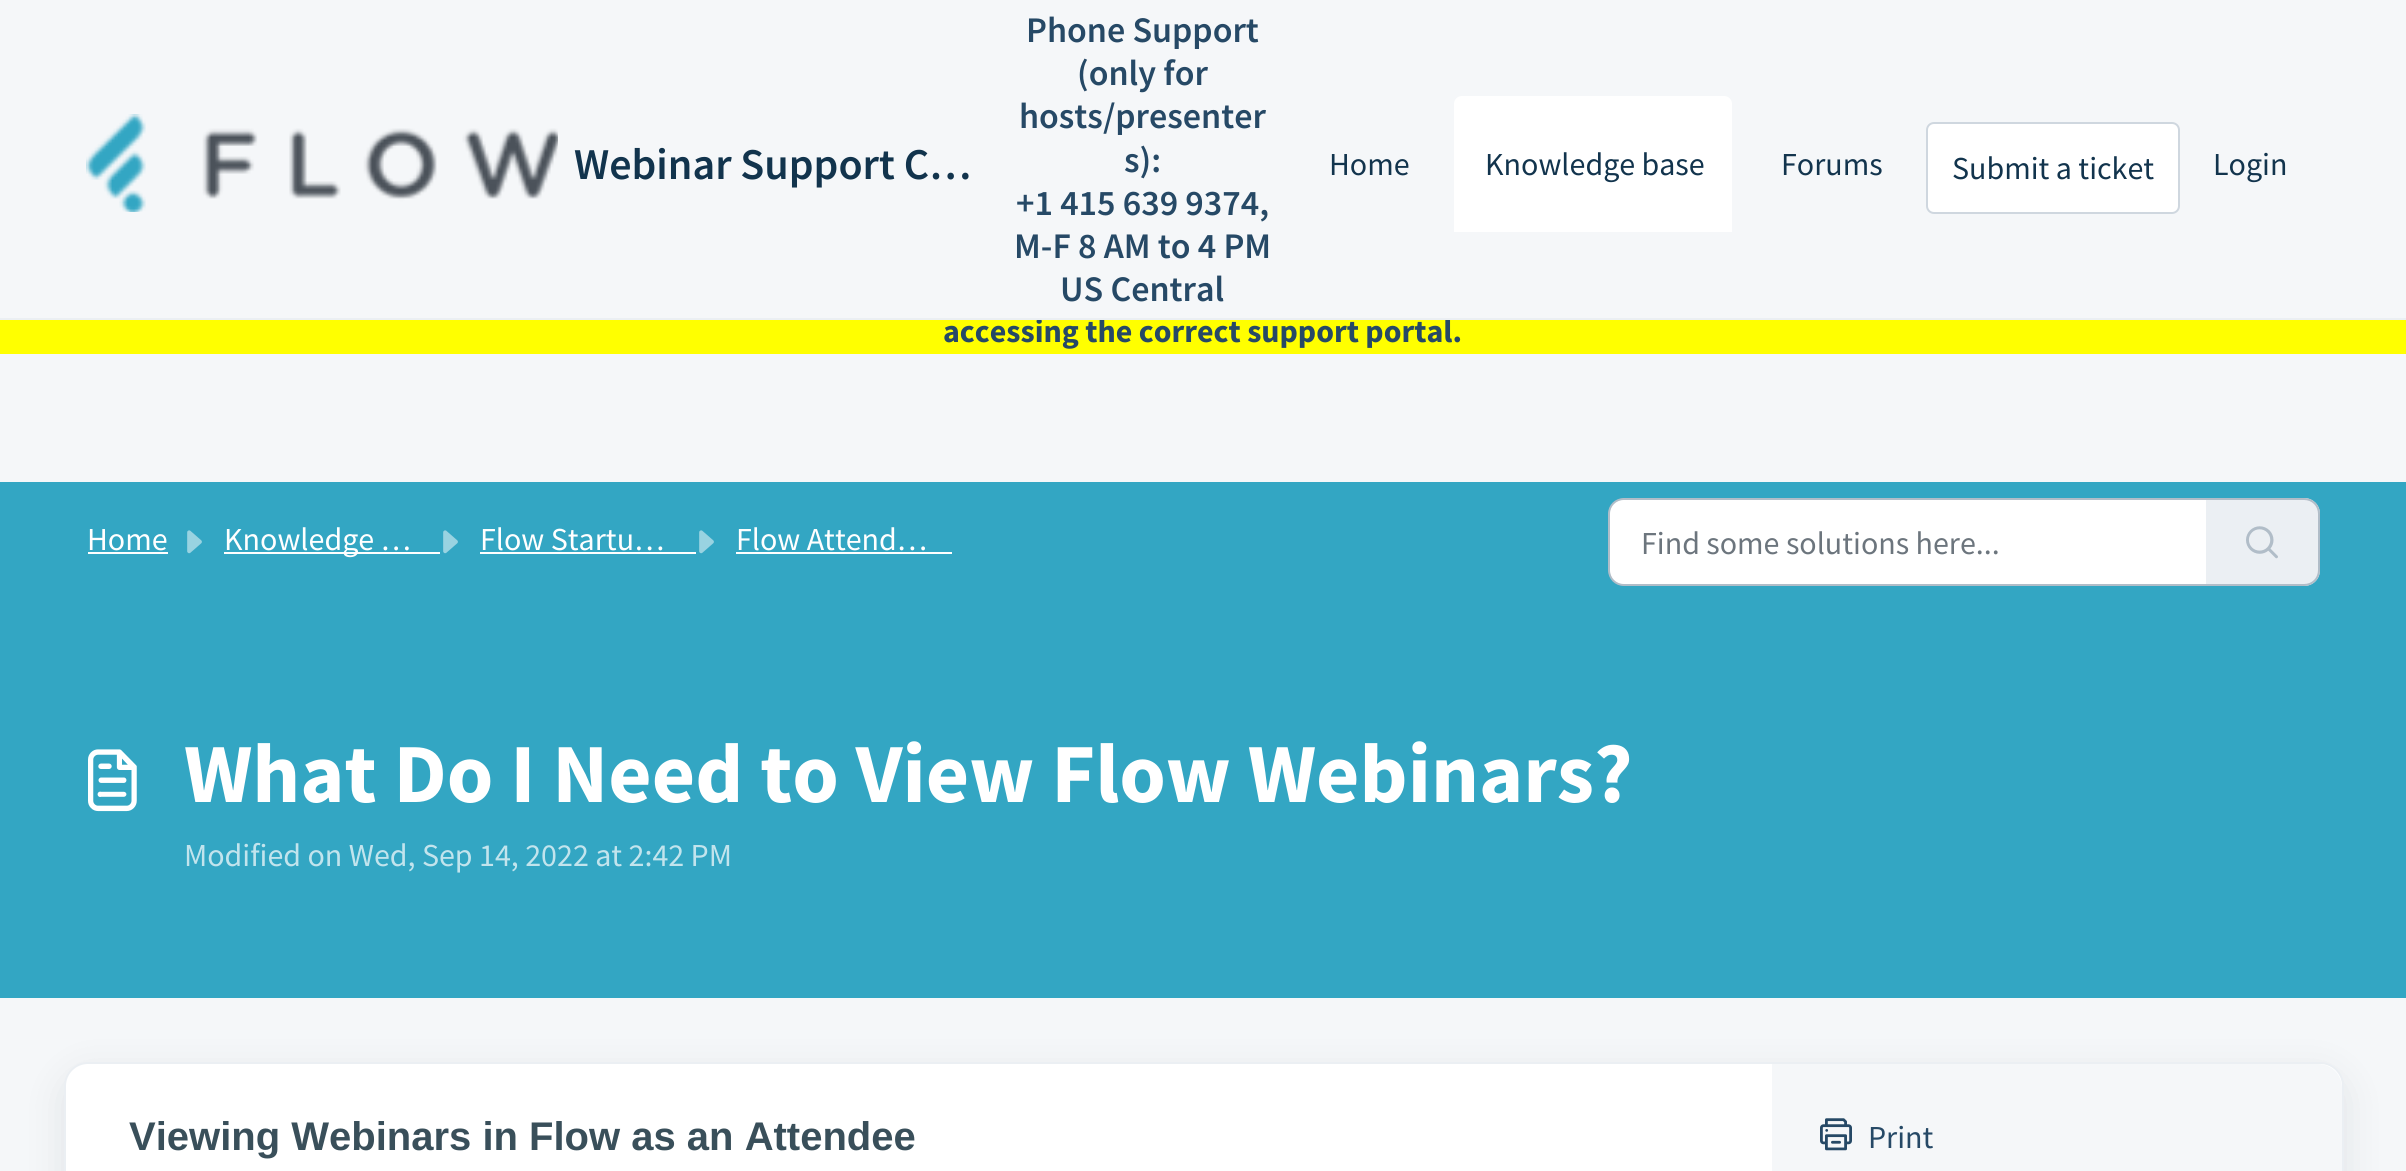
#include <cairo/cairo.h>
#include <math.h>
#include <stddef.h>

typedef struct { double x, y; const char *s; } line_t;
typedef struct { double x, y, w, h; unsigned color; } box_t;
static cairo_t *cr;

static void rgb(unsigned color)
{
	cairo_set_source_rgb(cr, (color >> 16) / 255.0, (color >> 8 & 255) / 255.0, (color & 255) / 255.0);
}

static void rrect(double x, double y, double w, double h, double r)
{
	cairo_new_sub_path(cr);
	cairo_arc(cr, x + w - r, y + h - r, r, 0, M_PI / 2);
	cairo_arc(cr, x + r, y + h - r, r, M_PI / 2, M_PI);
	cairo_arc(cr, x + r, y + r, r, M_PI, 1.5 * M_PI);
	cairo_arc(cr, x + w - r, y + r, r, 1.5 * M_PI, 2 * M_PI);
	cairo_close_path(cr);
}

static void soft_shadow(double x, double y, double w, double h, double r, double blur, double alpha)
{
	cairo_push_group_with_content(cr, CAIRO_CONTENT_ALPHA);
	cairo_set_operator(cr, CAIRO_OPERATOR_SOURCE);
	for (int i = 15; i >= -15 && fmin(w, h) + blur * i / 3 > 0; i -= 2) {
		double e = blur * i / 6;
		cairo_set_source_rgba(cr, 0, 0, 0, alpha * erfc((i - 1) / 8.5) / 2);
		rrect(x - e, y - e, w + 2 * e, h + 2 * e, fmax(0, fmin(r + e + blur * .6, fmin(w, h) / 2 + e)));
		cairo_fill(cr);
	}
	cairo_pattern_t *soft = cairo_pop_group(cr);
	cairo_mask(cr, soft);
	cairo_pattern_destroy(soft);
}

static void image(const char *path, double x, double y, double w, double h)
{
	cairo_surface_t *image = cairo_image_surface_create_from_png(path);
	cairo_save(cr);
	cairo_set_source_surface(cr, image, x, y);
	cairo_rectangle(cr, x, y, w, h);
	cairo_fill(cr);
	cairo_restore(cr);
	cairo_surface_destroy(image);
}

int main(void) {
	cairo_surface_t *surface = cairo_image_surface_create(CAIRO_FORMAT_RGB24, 2406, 1171);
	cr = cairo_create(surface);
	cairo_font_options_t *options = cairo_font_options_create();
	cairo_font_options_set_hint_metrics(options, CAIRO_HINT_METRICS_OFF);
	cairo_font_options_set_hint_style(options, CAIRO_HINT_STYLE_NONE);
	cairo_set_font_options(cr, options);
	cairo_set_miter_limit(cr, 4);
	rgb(0xf5f7f9);
	cairo_paint(cr);
	image("img/1.png", 86, 114, 472, 98);
	rgb(0xffffff);
	cairo_new_path(cr);
	cairo_move_to(cr, 1462, 96);
	cairo_line_to(cr, 1724, 96);
	cairo_curve_to(cr, 1728.5, 96, 1732, 99.5, 1732, 104);
	cairo_line_to(cr, 1732, 232);
	cairo_line_to(cr, 1454, 232);
	cairo_line_to(cr, 1454, 104);
	cairo_curve_to(cr, 1454, 99.5, 1457.5, 96, 1462, 96);
	cairo_close_path(cr);
	cairo_fill(cr);
	rrect(1927, 123, 252, 90, 7);
	cairo_fill_preserve(cr);
	rgb(0xcfd7df);
	cairo_stroke(cr);
	{
		static const box_t items[] = {
			{0, 320, 2406, 34, 0xffff00},
			{0, 482, 2406, 516, 0x33a6c3},
			{88, 552, 80, 2, 0xffffff},
		};
		for (size_t i = 0; i < sizeof items / sizeof *items; i++) {
			rgb(items[i].color);
			cairo_rectangle(cr, items[i].x, items[i].y, items[i].w, items[i].h);
			cairo_fill(cr);
		}
	}
	image("img/2.png", 187, 530, 15, 24);
	cairo_rectangle(cr, 224, 552, 216, 2);
	cairo_fill(cr);
	image("img/2.png", 443, 530, 15, 24);
	cairo_rectangle(cr, 480, 552, 216, 2);
	cairo_fill(cr);
	image("img/2.png", 699, 530, 15, 24);
	cairo_rectangle(cr, 736, 552, 216, 2);
	cairo_fill(cr);
	cairo_new_path(cr);
	cairo_move_to(cr, 1624, 499);
	cairo_line_to(cr, 2207, 499);
	cairo_line_to(cr, 2207, 585);
	cairo_line_to(cr, 1624, 585);
	cairo_curve_to(cr, 1615.5, 585, 1609, 578.5, 1609, 570);
	cairo_line_to(cr, 1609, 514);
	cairo_curve_to(cr, 1609, 505.5, 1615.5, 499, 1624, 499);
	cairo_close_path(cr);
	cairo_fill_preserve(cr);
	rgb(0xb1bdc8);
	cairo_stroke(cr);
	rgb(0xebeff3);
	cairo_new_path(cr);
	cairo_move_to(cr, 2206, 498);
	cairo_line_to(cr, 2304, 498);
	cairo_curve_to(cr, 2313, 498, 2320, 505, 2320, 514);
	cairo_line_to(cr, 2320, 570);
	cairo_curve_to(cr, 2320, 579, 2313, 586, 2304, 586);
	cairo_line_to(cr, 2206, 586);
	cairo_close_path(cr);
	cairo_fill(cr);
	rgb(0xb1bdc8);
	cairo_set_fill_rule(cr, CAIRO_FILL_RULE_EVEN_ODD);
	cairo_new_path(cr);
	cairo_move_to(cr, 2206, 498);
	cairo_line_to(cr, 2304, 498);
	cairo_curve_to(cr, 2313, 498, 2320, 505, 2320, 514);
	cairo_line_to(cr, 2320, 570);
	cairo_curve_to(cr, 2320, 579, 2313, 586, 2304, 586);
	cairo_line_to(cr, 2206, 586);
	cairo_close_path(cr);
	cairo_move_to(cr, 2206, 500);
	cairo_line_to(cr, 2304, 500);
	cairo_curve_to(cr, 2312, 500, 2318, 506, 2318, 514);
	cairo_line_to(cr, 2318, 570);
	cairo_curve_to(cr, 2318, 578, 2312, 584, 2304, 584);
	cairo_line_to(cr, 2206, 584);
	cairo_close_path(cr);
	cairo_fill(cr);
	image("img/3.png", 2246, 526, 32, 33);
	image("img/4.png", 88, 749, 49, 63);
	rgb(0x27313a);
	soft_shadow(64, 1074, 2280, 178, 24, 19, 0.1);
	rgb(0xffffff);
	rrect(65, 1063, 2278, 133, 23);
	cairo_fill_preserve(cr);
	rgb(0xebeff3);
	cairo_stroke(cr);
	rgb(0xf5f7f9);
	cairo_new_path(cr);
	cairo_move_to(cr, 1772, 1064);
	cairo_line_to(cr, 2318, 1064);
	cairo_curve_to(cr, 2331.5, 1064, 2342, 1074.5, 2342, 1088);
	cairo_line_to(cr, 2342, 1171);
	cairo_curve_to(cr, 2342, 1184.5, 2331.5, 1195, 2318, 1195);
	cairo_line_to(cr, 1772, 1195);
	cairo_close_path(cr);
	cairo_fill(cr);
	image("img/5.png", 1820, 1118, 32, 33);
	cairo_select_font_face(cr, "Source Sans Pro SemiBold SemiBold", CAIRO_FONT_SLANT_NORMAL, CAIRO_FONT_WEIGHT_NORMAL);
	cairo_set_font_size(cr, 44);
	rgb(0x12344d);
	cairo_move_to(cr, 574, 179);
	cairo_show_text(cr, "Webinar Support C…");
	cairo_set_font_size(cr, 36);
	rgb(0x264966);
	{
		static const line_t items[] = {
			{1026, 42, "Phone Support"},
			{1077, 85, "(only for"},
			{1019, 128, "hosts/presenter"},
			{1124, 172, "s):"},
			{1016, 215, "+1 415 639 9374,"},
			{1014, 258, "M-F 8 AM to 4 PM"},
			{1060, 301, "US Central"},
		};
		for (size_t i = 0; i < sizeof items / sizeof *items; i++) {
			cairo_move_to(cr, items[i].x, items[i].y);
			cairo_show_text(cr, items[i].s);
		}
	}
	cairo_select_font_face(cr, "Source Sans Pro", CAIRO_FONT_SLANT_NORMAL, CAIRO_FONT_WEIGHT_NORMAL);
	cairo_set_font_size(cr, 32);
	rgb(0x12344d);
	{
		static const line_t items[] = {
			{1329, 175, "Home"},
			{1485, 175, "Knowledge base"},
			{1781, 175, "Forums"},
			{1952, 179, "Submit a ticket"},
			{2213, 175, "Login"},
		};
		for (size_t i = 0; i < sizeof items / sizeof *items; i++) {
			cairo_move_to(cr, items[i].x, items[i].y);
			cairo_show_text(cr, items[i].s);
		}
	}
	cairo_select_font_face(cr, "Source Sans Pro", CAIRO_FONT_SLANT_NORMAL, CAIRO_FONT_WEIGHT_BOLD);
	rgb(0x264966);
	cairo_move_to(cr, 943, 342);
	cairo_show_text(cr, "accessing the correct support portal.");
	rgb(0xebeff3);
	cairo_rectangle(cr, 0, 318, 2406, 2);
	cairo_fill(cr);
	cairo_select_font_face(cr, "Source Sans Pro", CAIRO_FONT_SLANT_NORMAL, CAIRO_FONT_WEIGHT_NORMAL);
	rgb(0xffffff);
	{
		static const line_t items[] = {
			{87, 550, "Home"},
			{224, 550, "Knowledge …"},
			{480, 550, "Flow Startu…"},
			{736, 550, "Flow Attend…"},
		};
		for (size_t i = 0; i < sizeof items / sizeof *items; i++) {
			cairo_move_to(cr, items[i].x, items[i].y);
			cairo_show_text(cr, items[i].s);
		}
	}
	rgb(0x6c757d);
	cairo_move_to(cr, 1641, 554);
	cairo_show_text(cr, "Find some solutions here...");
	cairo_select_font_face(cr, "Source Sans Pro", CAIRO_FONT_SLANT_NORMAL, CAIRO_FONT_WEIGHT_BOLD);
	cairo_set_font_size(cr, 84);
	rgb(0xffffff);
	cairo_move_to(cr, 184, 802);
	cairo_show_text(cr, "What Do I Need to View Flow Webinars?");
	cairo_select_font_face(cr, "Source Sans Pro", CAIRO_FONT_SLANT_NORMAL, CAIRO_FONT_WEIGHT_NORMAL);
	cairo_set_font_size(cr, 32);
	rgb(0xc2e4ed);
	cairo_move_to(cr, 184, 866);
	cairo_show_text(cr, "Modified on Wed, Sep 14, 2022 at 2:42 PM");
	cairo_select_font_face(cr, "Liberation Sans", CAIRO_FONT_SLANT_NORMAL, CAIRO_FONT_WEIGHT_BOLD);
	cairo_set_font_size(cr, 40);
	rgb(0x394f5a);
	cairo_move_to(cr, 129, 1150);
	cairo_show_text(cr, "Viewing Webinars in Flow as an Attendee");
	cairo_select_font_face(cr, "Source Sans Pro", CAIRO_FONT_SLANT_NORMAL, CAIRO_FONT_WEIGHT_NORMAL);
	cairo_set_font_size(cr, 32);
	rgb(0x264966);
	cairo_move_to(cr, 1868, 1148);
	cairo_show_text(cr, "Print");
	cairo_surface_write_to_png(surface, "page.png");
	cairo_font_options_destroy(options);
	cairo_destroy(cr);
	cairo_surface_destroy(surface);
	return 0;
}
